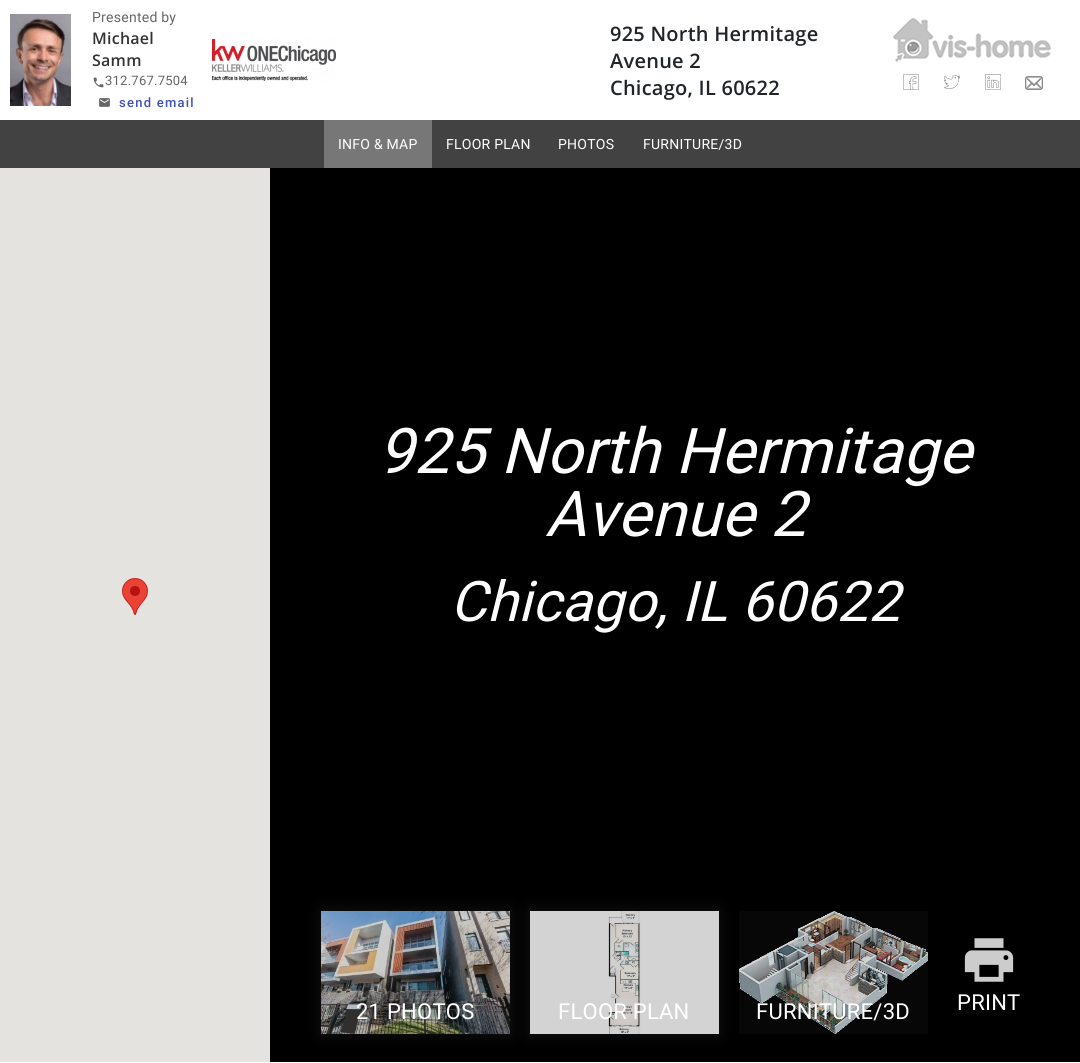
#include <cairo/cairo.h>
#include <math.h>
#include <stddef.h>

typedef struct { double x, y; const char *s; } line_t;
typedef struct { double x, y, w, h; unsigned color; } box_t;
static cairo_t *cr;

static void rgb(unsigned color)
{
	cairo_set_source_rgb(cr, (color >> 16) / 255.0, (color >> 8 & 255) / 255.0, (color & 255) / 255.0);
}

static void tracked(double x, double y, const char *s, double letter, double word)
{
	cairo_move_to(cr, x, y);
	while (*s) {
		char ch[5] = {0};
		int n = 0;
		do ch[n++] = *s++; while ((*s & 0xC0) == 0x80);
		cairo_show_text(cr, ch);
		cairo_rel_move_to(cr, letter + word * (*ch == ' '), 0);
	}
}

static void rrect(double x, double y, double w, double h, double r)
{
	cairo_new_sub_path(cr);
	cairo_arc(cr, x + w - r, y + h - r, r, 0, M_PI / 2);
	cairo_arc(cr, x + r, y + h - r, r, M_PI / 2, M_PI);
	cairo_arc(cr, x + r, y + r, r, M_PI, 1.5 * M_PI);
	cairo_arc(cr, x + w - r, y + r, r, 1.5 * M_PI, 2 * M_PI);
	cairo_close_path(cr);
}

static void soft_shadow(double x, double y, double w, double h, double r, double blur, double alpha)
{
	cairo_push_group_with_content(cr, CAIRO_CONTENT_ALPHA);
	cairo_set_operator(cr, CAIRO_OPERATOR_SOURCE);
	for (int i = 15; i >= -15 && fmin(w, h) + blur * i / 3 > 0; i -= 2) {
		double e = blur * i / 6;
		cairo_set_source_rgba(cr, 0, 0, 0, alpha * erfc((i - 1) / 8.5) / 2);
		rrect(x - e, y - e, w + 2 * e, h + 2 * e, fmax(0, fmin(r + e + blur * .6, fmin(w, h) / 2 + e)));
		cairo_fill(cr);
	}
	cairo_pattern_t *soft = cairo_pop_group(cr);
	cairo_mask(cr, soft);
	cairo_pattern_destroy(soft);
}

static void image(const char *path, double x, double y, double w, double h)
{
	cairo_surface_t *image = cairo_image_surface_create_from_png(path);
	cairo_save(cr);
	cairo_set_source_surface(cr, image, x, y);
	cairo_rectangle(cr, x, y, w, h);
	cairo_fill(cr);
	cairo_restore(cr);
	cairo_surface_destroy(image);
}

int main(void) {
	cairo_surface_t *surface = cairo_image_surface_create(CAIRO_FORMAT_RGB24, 1080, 1063);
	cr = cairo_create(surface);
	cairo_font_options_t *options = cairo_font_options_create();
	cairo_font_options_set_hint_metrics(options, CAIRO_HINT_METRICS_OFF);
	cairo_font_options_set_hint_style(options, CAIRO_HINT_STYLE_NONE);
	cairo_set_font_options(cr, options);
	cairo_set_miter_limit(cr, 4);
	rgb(0xffffff);
	cairo_paint(cr);
	image("img/1.png", 10, 14, 61, 92);
	image("img/2.png", 93, 77, 11, 11);
	image("img/3.png", 99, 98, 11, 9);
	image("img/4.png", 212, 39, 124, 42);
	image("img/5.png", 893, 18, 158, 44);
	image("img/6.png", 903, 74, 16, 16);
	image("img/7.png", 944, 75, 16, 14);
	image("img/8.png", 985, 74, 16, 16);
	image("img/9.png", 1025, 76, 18, 14);
	{
		static const box_t items[] = {
			{0, 120, 1080, 48, 0x424242},
			{324, 120, 108, 48, 0x777777},
			{0, 168, 270, 894, 0xe5e3df},
		};
		for (size_t i = 0; i < sizeof items / sizeof *items; i++) {
			rgb(items[i].color);
			cairo_rectangle(cr, items[i].x, items[i].y, items[i].w, items[i].h);
			cairo_fill(cr);
		}
	}
	image("img/10.png", 122, 578, 26, 37);
	rgb(0x000000);
	cairo_rectangle(cr, 270, 168, 810, 894);
	cairo_fill(cr);
	rgb(0x070707);
	cairo_rectangle(cr, 739, 911, 189, 123);
	cairo_fill(cr);
	rgb(0x141414);
	soft_shadow(321, 911, 189, 123, 0, 7.5, 1);
	image("img/11.png", 321, 911, 189, 123);
	soft_shadow(530, 911, 189, 123, 0, 7.5, 1);
	image("img/12.png", 530, 911, 189, 123);
	image("img/13.png", 739, 911, 189, 123);
	image("img/14.png", 964, 938, 50, 44);
	cairo_select_font_face(cr, "Roboto", CAIRO_FONT_SLANT_NORMAL, CAIRO_FONT_WEIGHT_NORMAL);
	cairo_set_font_size(cr, 14);
	rgb(0x666666);
	tracked(92, 22, "Presented by", 0.25, 0);
	cairo_select_font_face(cr, "Open Sans SemiBold", CAIRO_FONT_SLANT_NORMAL, CAIRO_FONT_WEIGHT_NORMAL);
	cairo_set_font_size(cr, 16);
	rgb(0x333333);
	tracked(92, 44, "Michael", 0.25, 0);
	tracked(92, 66, "Samm", 0.25, 0);
	cairo_select_font_face(cr, "Roboto", CAIRO_FONT_SLANT_NORMAL, CAIRO_FONT_WEIGHT_NORMAL);
	cairo_set_font_size(cr, 13);
	rgb(0x666666);
	tracked(105, 85, "312.767.7504", 0.25, 0);
	cairo_select_font_face(cr, "Roboto Medium", CAIRO_FONT_SLANT_NORMAL, CAIRO_FONT_WEIGHT_NORMAL);
	rgb(0x3f51b5);
	tracked(119, 107, "send email", 1.25, 0);
	cairo_select_font_face(cr, "Open Sans SemiBold", CAIRO_FONT_SLANT_NORMAL, CAIRO_FONT_WEIGHT_NORMAL);
	cairo_set_font_size(cr, 20);
	rgb(0x212529);
	{
		static const line_t items[] = {
			{610, 41, "925 North Hermitage"},
			{610, 68, "Avenue 2"},
			{610, 95, "Chicago, IL 60622"},
		};
		for (size_t i = 0; i < sizeof items / sizeof *items; i++) {
			tracked(items[i].x, items[i].y, items[i].s, 0.25, 0);
		}
	}
	cairo_select_font_face(cr, "Roboto", CAIRO_FONT_SLANT_NORMAL, CAIRO_FONT_WEIGHT_NORMAL);
	cairo_set_font_size(cr, 14);
	rgb(0xffffff);
	{
		static const line_t items[] = {
			{338, 149, "INFO & MAP"},
			{446, 149, "FLOOR PLAN"},
			{558, 149, "PHOTOS"},
			{643, 149, "FURNITURE/3D"},
		};
		for (size_t i = 0; i < sizeof items / sizeof *items; i++) {
			tracked(items[i].x, items[i].y, items[i].s, 0.25, 0);
		}
	}
	cairo_select_font_face(cr, "Roboto", CAIRO_FONT_SLANT_ITALIC, CAIRO_FONT_WEIGHT_NORMAL);
	cairo_set_font_size(cr, 63);
	tracked(378, 473, "925 North Hermitage", 0.25, 0);
	tracked(545, 536, "Avenue 2", 0.25, 0);
	cairo_set_font_size(cr, 56);
	tracked(450, 621, "Chicago, IL 60622", 0.25, 0);
	cairo_select_font_face(cr, "Roboto", CAIRO_FONT_SLANT_NORMAL, CAIRO_FONT_WEIGHT_NORMAL);
	cairo_set_font_size(cr, 22);
	{
		static const line_t items[] = {
			{356, 1019, "21 PHOTOS"},
			{558, 1019, "FLOOR PLAN"},
			{756, 1019, "FURNITURE/3D"},
			{957, 1010, "PRINT"},
		};
		for (size_t i = 0; i < sizeof items / sizeof *items; i++) {
			tracked(items[i].x, items[i].y, items[i].s, 0.25, 0);
		}
	}
	cairo_surface_write_to_png(surface, "page.png");
	cairo_font_options_destroy(options);
	cairo_destroy(cr);
	cairo_surface_destroy(surface);
	return 0;
}
